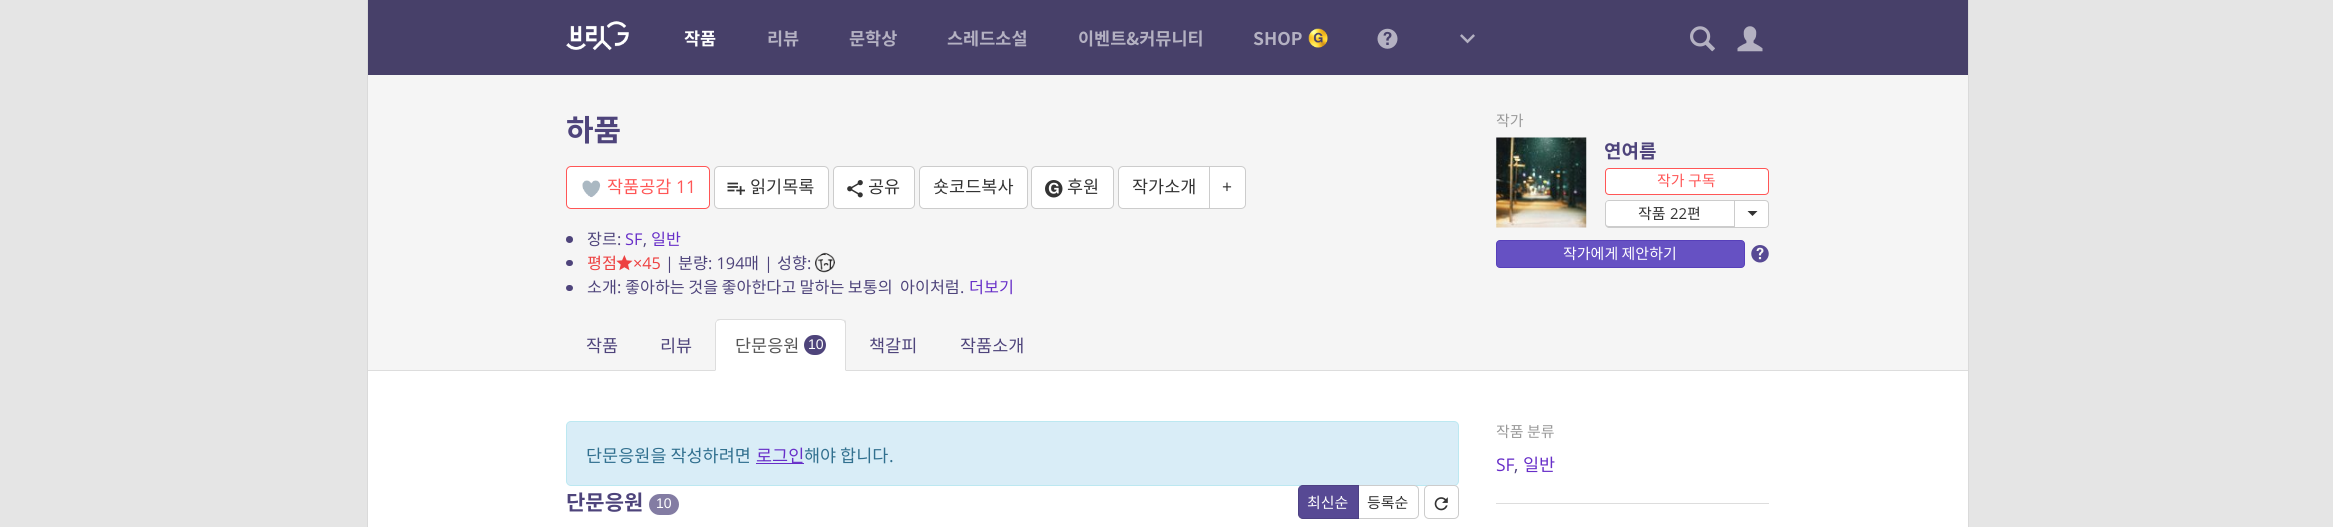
#include <cairo/cairo.h>
#include <math.h>
#include <stddef.h>

typedef struct { double x, y; const char *s; } line_t;
static cairo_t *cr;

static void rgb(unsigned color)
{
	cairo_set_source_rgb(cr, (color >> 16) / 255.0, (color >> 8 & 255) / 255.0, (color & 255) / 255.0);
}

static void tracked(double x, double y, const char *s, double letter, double word)
{
	cairo_move_to(cr, x, y);
	while (*s) {
		char ch[5] = {0};
		int n = 0;
		do ch[n++] = *s++; while ((*s & 0xC0) == 0x80);
		cairo_show_text(cr, ch);
		cairo_rel_move_to(cr, letter + word * (*ch == ' '), 0);
	}
}

static void rrect(double x, double y, double w, double h, double r)
{
	cairo_new_sub_path(cr);
	cairo_arc(cr, x + w - r, y + h - r, r, 0, M_PI / 2);
	cairo_arc(cr, x + r, y + h - r, r, M_PI / 2, M_PI);
	cairo_arc(cr, x + r, y + r, r, M_PI, 1.5 * M_PI);
	cairo_arc(cr, x + w - r, y + r, r, 1.5 * M_PI, 2 * M_PI);
	cairo_close_path(cr);
}

static void soft_shadow(double x, double y, double w, double h, double r, double blur, double alpha)
{
	cairo_push_group_with_content(cr, CAIRO_CONTENT_ALPHA);
	cairo_set_operator(cr, CAIRO_OPERATOR_SOURCE);
	for (int i = 15; i >= -15 && fmin(w, h) + blur * i / 3 > 0; i -= 2) {
		double e = blur * i / 6;
		cairo_set_source_rgba(cr, 0, 0, 0, alpha * erfc((i - 1) / 8.5) / 2);
		rrect(x - e, y - e, w + 2 * e, h + 2 * e, fmax(0, fmin(r + e + blur * .6, fmin(w, h) / 2 + e)));
		cairo_fill(cr);
	}
	cairo_pattern_t *soft = cairo_pop_group(cr);
	cairo_mask(cr, soft);
	cairo_pattern_destroy(soft);
}

static void image(const char *path, double x, double y, double w, double h)
{
	cairo_surface_t *image = cairo_image_surface_create_from_png(path);
	cairo_save(cr);
	cairo_set_source_surface(cr, image, x, y);
	cairo_rectangle(cr, x, y, w, h);
	cairo_fill(cr);
	cairo_restore(cr);
	cairo_surface_destroy(image);
}

int main(void) {
	cairo_surface_t *surface = cairo_image_surface_create(CAIRO_FORMAT_RGB24, 2333, 527);
	cr = cairo_create(surface);
	cairo_font_options_t *options = cairo_font_options_create();
	cairo_font_options_set_hint_metrics(options, CAIRO_HINT_METRICS_OFF);
	cairo_font_options_set_hint_style(options, CAIRO_HINT_STYLE_NONE);
	cairo_set_font_options(cr, options);
	cairo_set_miter_limit(cr, 4);
	rgb(0xe5e5e5);
	cairo_paint(cr);
	rgb(0x000000);
	soft_shadow(368, 0, 1600, 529, 0, 0.5, 0.2);
	rgb(0xffffff);
	cairo_rectangle(cr, 368, 371, 1600, 156);
	cairo_fill(cr);
	rgb(0x474069);
	cairo_rectangle(cr, 368, 0, 1600, 75);
	cairo_fill(cr);
	image("img/1.png", 566, 21, 63, 30);
	image("img/2.png", 1308, 28, 20, 20);
	image("img/3.png", 1377, 28, 21, 21);
	image("img/4.png", 1460, 34, 15, 10);
	image("img/5.png", 1690, 26, 25, 26);
	image("img/6.png", 1737, 26, 26, 26);
	rgb(0xf5f5f5);
	cairo_rectangle(cr, 368, 75, 1600, 295);
	cairo_fill(cr);
	rgb(0xdddddd);
	cairo_rectangle(cr, 368, 370, 1600, 1);
	cairo_fill(cr);
	rgb(0xffffff);
	rrect(566.5, 166.5, 143, 42, 4.5);
	cairo_fill_preserve(cr);
	rgb(0xff5656);
	cairo_set_line_width(cr, 1);
	cairo_stroke(cr);
	image("img/7.png", 582, 180, 19, 18);
	rgb(0xffffff);
	rrect(714.5, 166.5, 114, 42, 4.5);
	cairo_fill_preserve(cr);
	rgb(0xcccccc);
	cairo_stroke(cr);
	image("img/8.png", 727, 182, 18, 13);
	rgb(0xffffff);
	rrect(833.5, 166.5, 81, 42, 4.5);
	cairo_fill_preserve(cr);
	rgb(0xcccccc);
	cairo_stroke(cr);
	image("img/9.png", 847, 180, 16, 18);
	rgb(0xffffff);
	rrect(919.5, 166.5, 108, 42, 4.5);
	cairo_fill_preserve(cr);
	rgb(0xcccccc);
	cairo_stroke(cr);
	rgb(0xffffff);
	rrect(1031.5, 166.5, 82, 42, 4.5);
	cairo_fill_preserve(cr);
	rgb(0xcccccc);
	cairo_stroke(cr);
	image("img/10.png", 1045, 180, 18, 18);
	rgb(0xffffff);
	cairo_new_path(cr);
	cairo_move_to(cr, 1123, 166.5);
	cairo_line_to(cr, 1209.5, 166.5);
	cairo_line_to(cr, 1209.5, 208.5);
	cairo_line_to(cr, 1123, 208.5);
	cairo_curve_to(cr, 1120.5, 208.5, 1118.5, 206.5, 1118.5, 204);
	cairo_line_to(cr, 1118.5, 171);
	cairo_curve_to(cr, 1118.5, 168.5, 1120.5, 166.5, 1123, 166.5);
	cairo_close_path(cr);
	cairo_fill_preserve(cr);
	rgb(0xcccccc);
	cairo_stroke(cr);
	rgb(0xffffff);
	cairo_new_path(cr);
	cairo_move_to(cr, 1209.5, 166.5);
	cairo_line_to(cr, 1241, 166.5);
	cairo_curve_to(cr, 1243.5, 166.5, 1245.5, 168.5, 1245.5, 171);
	cairo_line_to(cr, 1245.5, 204);
	cairo_curve_to(cr, 1245.5, 206.5, 1243.5, 208.5, 1241, 208.5);
	cairo_line_to(cr, 1209.5, 208.5);
	cairo_close_path(cr);
	cairo_fill_preserve(cr);
	rgb(0xcccccc);
	cairo_stroke(cr);
	rgb(0x4e447b);
	cairo_arc(cr, 569.5, 239.5, 3.5, 0, 2 * M_PI);
	cairo_fill(cr);
	rrect(566, 260, 7, 6, 3);
	cairo_fill(cr);
	image("img/11.png", 616, 255, 17, 16);
	image("img/12.png", 815, 252, 20, 21);
	rrect(566, 285, 7, 6, 3);
	cairo_fill(cr);
	image("img/13.png", 1496, 137, 91, 91);
	rgb(0xffffff);
	rrect(1605.5, 168.5, 163, 26, 3.5);
	cairo_fill_preserve(cr);
	rgb(0xff5656);
	cairo_stroke(cr);
	rgb(0xffffff);
	cairo_new_path(cr);
	cairo_move_to(cr, 1608.5, 201);
	cairo_line_to(cr, 1734, 201);
	cairo_line_to(cr, 1734, 226);
	cairo_line_to(cr, 1608.5, 226);
	cairo_curve_to(cr, 1607, 226, 1606, 225, 1606, 223.5);
	cairo_line_to(cr, 1606, 203.5);
	cairo_curve_to(cr, 1606, 202, 1607, 201, 1608.5, 201);
	cairo_close_path(cr);
	cairo_fill(cr);
	rgb(0xcccccc);
	cairo_set_fill_rule(cr, CAIRO_FILL_RULE_EVEN_ODD);
	cairo_new_path(cr);
	cairo_move_to(cr, 1609, 200);
	cairo_line_to(cr, 1734, 200);
	cairo_line_to(cr, 1734, 228);
	cairo_line_to(cr, 1609, 228);
	cairo_curve_to(cr, 1607, 228, 1605, 226, 1605, 224);
	cairo_line_to(cr, 1605, 204);
	cairo_curve_to(cr, 1605, 202, 1607, 200, 1609, 200);
	cairo_close_path(cr);
	cairo_move_to(cr, 1609, 201);
	cairo_line_to(cr, 1734, 201);
	cairo_line_to(cr, 1734, 226);
	cairo_line_to(cr, 1609, 226);
	cairo_curve_to(cr, 1607, 226, 1606, 225, 1606, 224);
	cairo_line_to(cr, 1606, 204);
	cairo_curve_to(cr, 1606, 202, 1607, 201, 1609, 201);
	cairo_close_path(cr);
	cairo_fill(cr);
	rgb(0xffffff);
	cairo_new_path(cr);
	cairo_move_to(cr, 1734.5, 200.5);
	cairo_line_to(cr, 1765, 200.5);
	cairo_curve_to(cr, 1767, 200.5, 1768.5, 202, 1768.5, 204);
	cairo_line_to(cr, 1768.5, 224);
	cairo_curve_to(cr, 1768.5, 226, 1767, 227.5, 1765, 227.5);
	cairo_line_to(cr, 1734.5, 227.5);
	cairo_close_path(cr);
	cairo_fill_preserve(cr);
	rgb(0xcccccc);
	cairo_stroke(cr);
	rgb(0x333333);
	cairo_set_fill_rule(cr, CAIRO_FILL_RULE_WINDING);
	cairo_new_path(cr);
	cairo_move_to(cr, 1747.5, 211);
	cairo_line_to(cr, 1757.5, 211);
	cairo_line_to(cr, 1752.5, 216);
	cairo_close_path(cr);
	cairo_fill(cr);
	rgb(0x6651c3);
	rrect(1496.5, 240.5, 248, 27, 3.5);
	cairo_fill_preserve(cr);
	rgb(0x5740ba);
	cairo_stroke(cr);
	image("img/14.png", 1751, 245, 18, 18);
	rgb(0xffffff);
	cairo_new_path(cr);
	cairo_move_to(cr, 720, 319);
	cairo_line_to(cr, 841, 319);
	cairo_curve_to(cr, 844, 319, 846, 321, 846, 324);
	cairo_line_to(cr, 846, 371);
	cairo_line_to(cr, 715, 371);
	cairo_line_to(cr, 715, 324);
	cairo_curve_to(cr, 715, 321, 717, 319, 720, 319);
	cairo_close_path(cr);
	cairo_fill(cr);
	rgb(0xdddddd);
	cairo_new_path(cr);
	cairo_move_to(cr, 720, 319);
	cairo_curve_to(cr, 719, 319, 717, 319, 717, 320);
	cairo_line_to(cr, 717, 321);
	cairo_line_to(cr, 720, 320);
	cairo_line_to(cr, 841, 320);
	cairo_line_to(cr, 844, 321);
	cairo_line_to(cr, 845, 320);
	cairo_curve_to(cr, 844, 320, 842, 319, 841, 319);
	cairo_close_path(cr);
	cairo_fill(cr);
	cairo_new_path(cr);
	cairo_move_to(cr, 846, 371);
	cairo_line_to(cr, 846, 324);
	cairo_curve_to(cr, 846, 322, 846, 321, 845, 320);
	cairo_line_to(cr, 844, 321);
	cairo_curve_to(cr, 844, 322, 845, 323, 845, 324);
	cairo_line_to(cr, 845, 370);
	cairo_close_path(cr);
	cairo_fill(cr);
	cairo_new_path(cr);
	cairo_move_to(cr, 715, 324);
	cairo_line_to(cr, 715, 371);
	cairo_line_to(cr, 716, 370);
	cairo_line_to(cr, 716, 323);
	cairo_line_to(cr, 717, 321);
	cairo_line_to(cr, 717, 320);
	cairo_curve_to(cr, 716, 321, 715, 322, 715, 324);
	cairo_close_path(cr);
	cairo_fill(cr);
	rgb(0x4e447b);
	rrect(804, 335, 22, 20, 10);
	cairo_fill(cr);
	rgb(0xd9edf7);
	rrect(566.5, 421.5, 892, 64, 4.5);
	cairo_fill_preserve(cr);
	rgb(0xbce8f1);
	cairo_stroke(cr);
	rgb(0x672ec8);
	cairo_rectangle(cr, 756, 463, 48, 1);
	cairo_fill(cr);
	rgb(0x837ca3);
	rrect(649, 494, 30, 21, 10.5);
	cairo_fill(cr);
	rgb(0xffffff);
	cairo_new_path(cr);
	cairo_move_to(cr, 1358.5, 485.5);
	cairo_line_to(cr, 1414, 485.5);
	cairo_curve_to(cr, 1416.5, 485.5, 1418.5, 487.5, 1418.5, 490);
	cairo_line_to(cr, 1418.5, 514);
	cairo_curve_to(cr, 1418.5, 516.5, 1416.5, 518.5, 1414, 518.5);
	cairo_line_to(cr, 1358.5, 518.5);
	cairo_close_path(cr);
	cairo_fill_preserve(cr);
	rgb(0xcccccc);
	cairo_stroke(cr);
	rgb(0x574994);
	cairo_new_path(cr);
	cairo_move_to(cr, 1303, 485.5);
	cairo_line_to(cr, 1358.5, 485.5);
	cairo_line_to(cr, 1358.5, 518.5);
	cairo_line_to(cr, 1303, 518.5);
	cairo_curve_to(cr, 1300.5, 518.5, 1298.5, 516.5, 1298.5, 514);
	cairo_line_to(cr, 1298.5, 490);
	cairo_curve_to(cr, 1298.5, 487.5, 1300.5, 485.5, 1303, 485.5);
	cairo_close_path(cr);
	cairo_fill_preserve(cr);
	rgb(0x4d4183);
	cairo_stroke(cr);
	rgb(0xffffff);
	rrect(1424.5, 485.5, 34, 33, 4.5);
	cairo_fill_preserve(cr);
	rgb(0xcccccc);
	cairo_stroke(cr);
	image("img/15.png", 1434, 497, 14, 14);
	rgb(0xdddddd);
	cairo_rectangle(cr, 1496, 503, 273, 1);
	cairo_fill(cr);
	cairo_select_font_face(cr, "Noto Sans KR", CAIRO_FONT_SLANT_NORMAL, CAIRO_FONT_WEIGHT_BOLD);
	cairo_set_font_size(cr, 17.5);
	rgb(0xffffff);
	cairo_move_to(cr, 684, 45);
	cairo_show_text(cr, "작품");
	rgb(0xb4b1c2);
	{
		static const line_t items[] = {
			{767, 45, "리뷰"},
			{849, 45, "문학상"},
			{947, 45, "스레드소설"},
			{1078, 45, "이벤트&커뮤니티"},
			{1253, 45, "SHOP"},
		};
		for (size_t i = 0; i < sizeof items / sizeof *items; i++) {
			cairo_move_to(cr, items[i].x, items[i].y);
			cairo_show_text(cr, items[i].s);
		}
	}
	cairo_set_font_size(cr, 30);
	rgb(0x4e447b);
	cairo_move_to(cr, 566, 141);
	cairo_show_text(cr, "하품");
	cairo_select_font_face(cr, "Noto Sans KR", CAIRO_FONT_SLANT_NORMAL, CAIRO_FONT_WEIGHT_NORMAL);
	cairo_set_font_size(cr, 17.5);
	rgb(0xff5656);
	cairo_move_to(cr, 607, 193);
	cairo_show_text(cr, "작품공감");
	cairo_select_font_face(cr, "Open Sans", CAIRO_FONT_SLANT_NORMAL, CAIRO_FONT_WEIGHT_NORMAL);
	cairo_move_to(cr, 676, 193);
	cairo_show_text(cr, "11");
	cairo_select_font_face(cr, "Noto Sans KR", CAIRO_FONT_SLANT_NORMAL, CAIRO_FONT_WEIGHT_NORMAL);
	rgb(0x333333);
	{
		static const line_t items[] = {
			{750, 193, "읽기목록"},
			{868, 193, "공유"},
			{933, 193, "숏코드복사"},
			{1067, 193, "후원"},
			{1132, 193, "작가소개"},
		};
		for (size_t i = 0; i < sizeof items / sizeof *items; i++) {
			cairo_move_to(cr, items[i].x, items[i].y);
			cairo_show_text(cr, items[i].s);
		}
	}
	cairo_select_font_face(cr, "Open Sans", CAIRO_FONT_SLANT_NORMAL, CAIRO_FONT_WEIGHT_NORMAL);
	cairo_move_to(cr, 1222, 193);
	cairo_show_text(cr, "+");
	cairo_select_font_face(cr, "Noto Sans KR", CAIRO_FONT_SLANT_NORMAL, CAIRO_FONT_WEIGHT_NORMAL);
	cairo_set_font_size(cr, 16.25);
	rgb(0x4e447b);
	cairo_move_to(cr, 587, 245);
	cairo_show_text(cr, "장르");
	cairo_select_font_face(cr, "Open Sans", CAIRO_FONT_SLANT_NORMAL, CAIRO_FONT_WEIGHT_NORMAL);
	cairo_move_to(cr, 617, 245);
	cairo_show_text(cr, ":");
	rgb(0x672ec8);
	cairo_move_to(cr, 625, 245);
	cairo_show_text(cr, "SF");
	rgb(0x4e447b);
	cairo_move_to(cr, 643, 245);
	cairo_show_text(cr, ",");
	cairo_select_font_face(cr, "Noto Sans KR", CAIRO_FONT_SLANT_NORMAL, CAIRO_FONT_WEIGHT_NORMAL);
	rgb(0x672ec8);
	cairo_move_to(cr, 651, 245);
	cairo_show_text(cr, "일반");
	rgb(0xed4141);
	cairo_move_to(cr, 587, 269);
	cairo_show_text(cr, "평점");
	cairo_select_font_face(cr, "Open Sans", CAIRO_FONT_SLANT_NORMAL, CAIRO_FONT_WEIGHT_NORMAL);
	cairo_move_to(cr, 633, 269);
	cairo_show_text(cr, "×45");
	rgb(0x4e447b);
	cairo_move_to(cr, 665, 269);
	cairo_show_text(cr, "|");
	cairo_select_font_face(cr, "Noto Sans KR", CAIRO_FONT_SLANT_NORMAL, CAIRO_FONT_WEIGHT_NORMAL);
	cairo_move_to(cr, 678, 269);
	cairo_show_text(cr, "분량");
	cairo_select_font_face(cr, "Open Sans", CAIRO_FONT_SLANT_NORMAL, CAIRO_FONT_WEIGHT_NORMAL);
	cairo_move_to(cr, 708, 269);
	cairo_show_text(cr, ": 194");
	cairo_select_font_face(cr, "Noto Sans KR", CAIRO_FONT_SLANT_NORMAL, CAIRO_FONT_WEIGHT_NORMAL);
	cairo_move_to(cr, 744, 269);
	cairo_show_text(cr, "매");
	cairo_select_font_face(cr, "Open Sans", CAIRO_FONT_SLANT_NORMAL, CAIRO_FONT_WEIGHT_NORMAL);
	cairo_move_to(cr, 764, 269);
	cairo_show_text(cr, "|");
	cairo_select_font_face(cr, "Noto Sans KR", CAIRO_FONT_SLANT_NORMAL, CAIRO_FONT_WEIGHT_NORMAL);
	cairo_move_to(cr, 777, 269);
	cairo_show_text(cr, "성향");
	cairo_select_font_face(cr, "Open Sans", CAIRO_FONT_SLANT_NORMAL, CAIRO_FONT_WEIGHT_NORMAL);
	cairo_move_to(cr, 807, 269);
	cairo_show_text(cr, ":");
	cairo_select_font_face(cr, "Noto Sans KR", CAIRO_FONT_SLANT_NORMAL, CAIRO_FONT_WEIGHT_NORMAL);
	cairo_move_to(cr, 587, 293);
	cairo_show_text(cr, "소개");
	cairo_select_font_face(cr, "Open Sans", CAIRO_FONT_SLANT_NORMAL, CAIRO_FONT_WEIGHT_NORMAL);
	cairo_move_to(cr, 617, 293);
	cairo_show_text(cr, ":");
	cairo_select_font_face(cr, "Noto Sans KR", CAIRO_FONT_SLANT_NORMAL, CAIRO_FONT_WEIGHT_NORMAL);
	tracked(625, 293, "좋아하는 것을 좋아한다고 말하는 보통의", 0, -0.25);
	tracked(900, 293, "아이처럼", 0, -0.25);
	cairo_select_font_face(cr, "Open Sans", CAIRO_FONT_SLANT_NORMAL, CAIRO_FONT_WEIGHT_NORMAL);
	cairo_move_to(cr, 960, 293);
	cairo_show_text(cr, ".");
	cairo_select_font_face(cr, "Noto Sans KR", CAIRO_FONT_SLANT_NORMAL, CAIRO_FONT_WEIGHT_NORMAL);
	rgb(0x672ec8);
	cairo_move_to(cr, 969, 293);
	cairo_show_text(cr, "더보기");
	cairo_set_font_size(cr, 15);
	rgb(0x999999);
	cairo_move_to(cr, 1496, 126);
	cairo_show_text(cr, "작가");
	cairo_select_font_face(cr, "Noto Sans KR", CAIRO_FONT_SLANT_NORMAL, CAIRO_FONT_WEIGHT_BOLD);
	cairo_set_font_size(cr, 19);
	rgb(0x4e447b);
	cairo_move_to(cr, 1604, 158);
	cairo_show_text(cr, "연여름");
	cairo_select_font_face(cr, "Noto Sans KR", CAIRO_FONT_SLANT_NORMAL, CAIRO_FONT_WEIGHT_NORMAL);
	cairo_set_font_size(cr, 15);
	rgb(0xff5656);
	cairo_move_to(cr, 1657, 186);
	cairo_show_text(cr, "작가 구독");
	rgb(0x333333);
	cairo_move_to(cr, 1638, 219);
	cairo_show_text(cr, "작품");
	cairo_select_font_face(cr, "Open Sans", CAIRO_FONT_SLANT_NORMAL, CAIRO_FONT_WEIGHT_NORMAL);
	cairo_move_to(cr, 1670, 219);
	cairo_show_text(cr, "22");
	cairo_select_font_face(cr, "Noto Sans KR", CAIRO_FONT_SLANT_NORMAL, CAIRO_FONT_WEIGHT_NORMAL);
	cairo_move_to(cr, 1687, 219);
	cairo_show_text(cr, "편");
	rgb(0xffffff);
	cairo_move_to(cr, 1563, 259);
	cairo_show_text(cr, "작가에게 제안하기");
	cairo_set_font_size(cr, 17.5);
	rgb(0x4e447b);
	cairo_move_to(cr, 586, 352);
	cairo_show_text(cr, "작품");
	cairo_move_to(cr, 660, 352);
	cairo_show_text(cr, "리뷰");
	rgb(0x555555);
	cairo_move_to(cr, 735, 352);
	cairo_show_text(cr, "단문응원");
	cairo_select_font_face(cr, "Liberation Sans", CAIRO_FONT_SLANT_NORMAL, CAIRO_FONT_WEIGHT_NORMAL);
	cairo_set_font_size(cr, 14);
	rgb(0xffffff);
	cairo_move_to(cr, 808, 349);
	cairo_show_text(cr, "10");
	cairo_select_font_face(cr, "Noto Sans KR", CAIRO_FONT_SLANT_NORMAL, CAIRO_FONT_WEIGHT_NORMAL);
	cairo_set_font_size(cr, 17.5);
	rgb(0x4e447b);
	cairo_move_to(cr, 869, 352);
	cairo_show_text(cr, "책갈피");
	cairo_move_to(cr, 960, 352);
	cairo_show_text(cr, "작품소개");
	rgb(0x31708f);
	cairo_move_to(cr, 586, 462);
	cairo_show_text(cr, "단문응원을 작성하려면");
	rgb(0x672ec8);
	cairo_move_to(cr, 756, 462);
	cairo_show_text(cr, "로그인");
	rgb(0x31708f);
	cairo_move_to(cr, 804, 462);
	cairo_show_text(cr, "해야 합니다");
	cairo_select_font_face(cr, "Open Sans", CAIRO_FONT_SLANT_NORMAL, CAIRO_FONT_WEIGHT_NORMAL);
	cairo_move_to(cr, 889, 462);
	cairo_show_text(cr, ".");
	cairo_select_font_face(cr, "Noto Sans KR", CAIRO_FONT_SLANT_NORMAL, CAIRO_FONT_WEIGHT_BOLD);
	cairo_set_font_size(cr, 21);
	rgb(0x4e447b);
	cairo_move_to(cr, 566, 510);
	cairo_show_text(cr, "단문응원");
	cairo_select_font_face(cr, "Liberation Sans", CAIRO_FONT_SLANT_NORMAL, CAIRO_FONT_WEIGHT_NORMAL);
	cairo_set_font_size(cr, 14);
	rgb(0xffffff);
	cairo_move_to(cr, 656, 508);
	cairo_show_text(cr, "10");
	cairo_select_font_face(cr, "Noto Sans KR", CAIRO_FONT_SLANT_NORMAL, CAIRO_FONT_WEIGHT_NORMAL);
	cairo_set_font_size(cr, 15);
	cairo_move_to(cr, 1307, 508);
	cairo_show_text(cr, "최신순");
	rgb(0x333333);
	cairo_move_to(cr, 1367, 508);
	cairo_show_text(cr, "등록순");
	rgb(0x999999);
	cairo_move_to(cr, 1496, 437);
	cairo_show_text(cr, "작품 분류");
	cairo_select_font_face(cr, "Open Sans", CAIRO_FONT_SLANT_NORMAL, CAIRO_FONT_WEIGHT_NORMAL);
	cairo_set_font_size(cr, 17.5);
	rgb(0x672ec8);
	cairo_move_to(cr, 1496, 471);
	cairo_show_text(cr, "SF");
	rgb(0x4e447b);
	cairo_move_to(cr, 1514, 471);
	cairo_show_text(cr, ",");
	cairo_select_font_face(cr, "Noto Sans KR", CAIRO_FONT_SLANT_NORMAL, CAIRO_FONT_WEIGHT_NORMAL);
	rgb(0x672ec8);
	cairo_move_to(cr, 1523, 471);
	cairo_show_text(cr, "일반");
	cairo_surface_write_to_png(surface, "page.png");
	cairo_font_options_destroy(options);
	cairo_destroy(cr);
	cairo_surface_destroy(surface);
	return 0;
}
